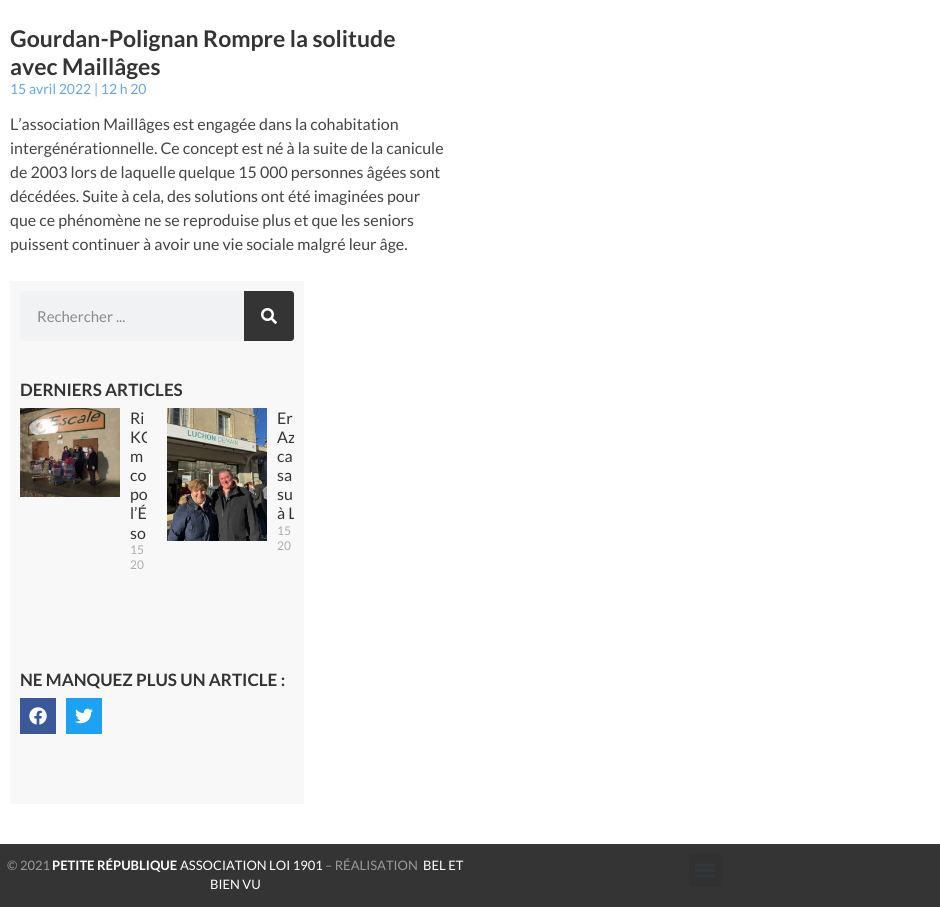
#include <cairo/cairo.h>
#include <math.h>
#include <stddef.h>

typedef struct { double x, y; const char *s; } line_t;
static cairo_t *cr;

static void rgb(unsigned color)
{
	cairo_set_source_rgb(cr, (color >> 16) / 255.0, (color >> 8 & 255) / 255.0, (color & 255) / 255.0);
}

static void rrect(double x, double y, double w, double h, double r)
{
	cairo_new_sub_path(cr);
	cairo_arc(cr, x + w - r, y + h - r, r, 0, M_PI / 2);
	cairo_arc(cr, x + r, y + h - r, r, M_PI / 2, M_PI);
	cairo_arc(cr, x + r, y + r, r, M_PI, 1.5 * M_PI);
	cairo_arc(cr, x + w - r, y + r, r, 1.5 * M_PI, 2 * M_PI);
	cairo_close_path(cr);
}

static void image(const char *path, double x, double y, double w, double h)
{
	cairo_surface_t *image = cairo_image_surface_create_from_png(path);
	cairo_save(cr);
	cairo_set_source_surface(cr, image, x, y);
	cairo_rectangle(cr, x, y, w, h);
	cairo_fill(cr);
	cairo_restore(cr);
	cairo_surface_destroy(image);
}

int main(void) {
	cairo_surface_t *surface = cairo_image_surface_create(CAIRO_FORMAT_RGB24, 940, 907);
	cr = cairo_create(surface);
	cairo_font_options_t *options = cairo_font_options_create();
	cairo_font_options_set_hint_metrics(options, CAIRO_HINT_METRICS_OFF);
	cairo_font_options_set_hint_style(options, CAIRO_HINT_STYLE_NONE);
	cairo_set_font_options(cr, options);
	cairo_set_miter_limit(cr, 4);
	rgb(0xffffff);
	cairo_paint(cr);
	rgb(0xf8f8f8);
	cairo_rectangle(cr, 10, 281, 294, 523);
	cairo_fill(cr);
	rgb(0xf1f2f3);
	rrect(20, 291, 274, 50, 3);
	cairo_fill(cr);
	rgb(0x343434);
	cairo_new_path(cr);
	cairo_move_to(cr, 244, 291);
	cairo_line_to(cr, 291, 291);
	cairo_curve_to(cr, 292.5, 291, 294, 292.5, 294, 294);
	cairo_line_to(cr, 294, 338);
	cairo_curve_to(cr, 294, 339.5, 292.5, 341, 291, 341);
	cairo_line_to(cr, 244, 341);
	cairo_close_path(cr);
	cairo_fill(cr);
	image("img/1.png", 261, 308, 16, 16);
	image("img/2.png", 20, 408, 100, 89);
	image("img/3.png", 167, 408, 100, 133);
	rgb(0x3b5998);
	cairo_rectangle(cr, 20, 698, 36, 36);
	cairo_fill(cr);
	image("img/4.png", 29, 707, 18, 18);
	rgb(0x1da1f2);
	cairo_rectangle(cr, 66, 698, 36, 36);
	cairo_fill(cr);
	image("img/5.png", 75, 708, 18, 16);
	rgb(0x343434);
	cairo_rectangle(cr, 0, 844, 940, 63);
	cairo_fill(cr);
	rgb(0x313131);
	rrect(689, 854, 33, 33, 3);
	cairo_fill(cr);
	image("img/6.png", 695, 863, 20, 14);
	cairo_select_font_face(cr, "Lato", CAIRO_FONT_SLANT_NORMAL, CAIRO_FONT_WEIGHT_BOLD);
	cairo_set_font_size(cr, 23);
	rgb(0x343434);
	cairo_move_to(cr, 10, 47);
	cairo_show_text(cr, "Gourdan-Polignan Rompre la solitude");
	cairo_move_to(cr, 10, 75);
	cairo_show_text(cr, "avec Maillâges");
	cairo_select_font_face(cr, "Lato", CAIRO_FONT_SLANT_NORMAL, CAIRO_FONT_WEIGHT_NORMAL);
	cairo_set_font_size(cr, 14);
	rgb(0x68a7dd);
	cairo_move_to(cr, 10, 94);
	cairo_show_text(cr, "15 avril 2022 | 12 h 20");
	cairo_set_font_size(cr, 16);
	rgb(0x444444);
	{
		static const line_t items[] = {
			{10, 130, "L’association Maillâges est engagée dans la cohabitation"},
			{10, 154, "intergénérationnelle. Ce concept est né à la suite de la canicule"},
			{10, 178, "de 2003 lors de laquelle quelque 15 000 personnes âgées sont"},
			{10, 202, "décédées. Suite à cela, des solutions ont été imaginées pour"},
			{10, 226, "que ce phénomène ne se reproduise plus et que les seniors"},
			{10, 250, "puissent continuer à avoir une vie sociale malgré leur âge."},
		};
		for (size_t i = 0; i < sizeof items / sizeof *items; i++) {
			cairo_move_to(cr, items[i].x, items[i].y);
			cairo_show_text(cr, items[i].s);
		}
	}
	cairo_set_font_size(cr, 15);
	rgb(0x898a8a);
	cairo_move_to(cr, 37, 322);
	cairo_show_text(cr, "Rechercher ...");
	cairo_select_font_face(cr, "Lato", CAIRO_FONT_SLANT_NORMAL, CAIRO_FONT_WEIGHT_BOLD);
	cairo_set_font_size(cr, 17);
	rgb(0x343434);
	cairo_move_to(cr, 20, 396);
	cairo_show_text(cr, "DERNIERS ARTICLES");
	cairo_select_font_face(cr, "Lato", CAIRO_FONT_SLANT_NORMAL, CAIRO_FONT_WEIGHT_NORMAL);
	cairo_set_font_size(cr, 16);
	cairo_move_to(cr, 130, 424);
	cairo_show_text(cr, "Ri");
	cairo_save(cr);
	cairo_rectangle(cr, 20, 408, 127, 233);
	cairo_clip(cr);
	cairo_move_to(cr, 130, 443);
	cairo_show_text(cr, "KG");
	cairo_restore(cr);
	{
		static const line_t items[] = {
			{130, 462, "m"},
			{130, 481, "co"},
			{130, 500, "po"},
			{130, 519, "l’É"},
			{130, 539, "so"},
		};
		for (size_t i = 0; i < sizeof items / sizeof *items; i++) {
			cairo_move_to(cr, items[i].x, items[i].y);
			cairo_show_text(cr, items[i].s);
		}
	}
	cairo_set_font_size(cr, 12);
	rgb(0xadadad);
	cairo_move_to(cr, 130, 554);
	cairo_show_text(cr, "15");
	cairo_move_to(cr, 130, 569);
	cairo_show_text(cr, "20");
	cairo_set_font_size(cr, 16);
	rgb(0x343434);
	cairo_move_to(cr, 277, 424);
	cairo_show_text(cr, "Er");
	cairo_save(cr);
	cairo_rectangle(cr, 167, 408, 127, 233);
	cairo_clip(cr);
	cairo_move_to(cr, 277, 443);
	cairo_show_text(cr, "Az");
	cairo_restore(cr);
	{
		static const line_t items[] = {
			{277, 462, "ca"},
			{277, 481, "sa"},
			{277, 500, "su"},
		};
		for (size_t i = 0; i < sizeof items / sizeof *items; i++) {
			cairo_move_to(cr, items[i].x, items[i].y);
			cairo_show_text(cr, items[i].s);
		}
	}
	cairo_save(cr);
	cairo_rectangle(cr, 167, 408, 127, 233);
	cairo_clip(cr);
	cairo_move_to(cr, 277, 519);
	cairo_show_text(cr, "à L");
	cairo_restore(cr);
	cairo_set_font_size(cr, 12);
	rgb(0xadadad);
	cairo_move_to(cr, 277, 535);
	cairo_show_text(cr, "15");
	cairo_move_to(cr, 277, 550);
	cairo_show_text(cr, "20");
	cairo_select_font_face(cr, "Lato", CAIRO_FONT_SLANT_NORMAL, CAIRO_FONT_WEIGHT_BOLD);
	cairo_set_font_size(cr, 17);
	rgb(0x343434);
	cairo_move_to(cr, 20, 686);
	cairo_show_text(cr, "NE MANQUEZ PLUS UN ARTICLE :");
	cairo_select_font_face(cr, "Lato", CAIRO_FONT_SLANT_NORMAL, CAIRO_FONT_WEIGHT_NORMAL);
	cairo_set_font_size(cr, 13);
	rgb(0x999999);
	cairo_move_to(cr, 7, 870);
	cairo_show_text(cr, "© 2021");
	cairo_select_font_face(cr, "Lato", CAIRO_FONT_SLANT_NORMAL, CAIRO_FONT_WEIGHT_BOLD);
	rgb(0xffffff);
	cairo_move_to(cr, 52, 870);
	cairo_show_text(cr, "PETITE RÉPUBLIQUE");
	cairo_select_font_face(cr, "Lato", CAIRO_FONT_SLANT_NORMAL, CAIRO_FONT_WEIGHT_NORMAL);
	cairo_move_to(cr, 180, 870);
	cairo_show_text(cr, "ASSOCIATION LOI 1901");
	rgb(0x999999);
	cairo_move_to(cr, 325, 870);
	cairo_show_text(cr, "– RÉALISATION");
	rgb(0xffffff);
	cairo_move_to(cr, 423, 870);
	cairo_show_text(cr, "BEL ET");
	cairo_move_to(cr, 210, 889);
	cairo_show_text(cr, "BIEN VU");
	cairo_surface_write_to_png(surface, "page.png");
	cairo_font_options_destroy(options);
	cairo_destroy(cr);
	cairo_surface_destroy(surface);
	return 0;
}
